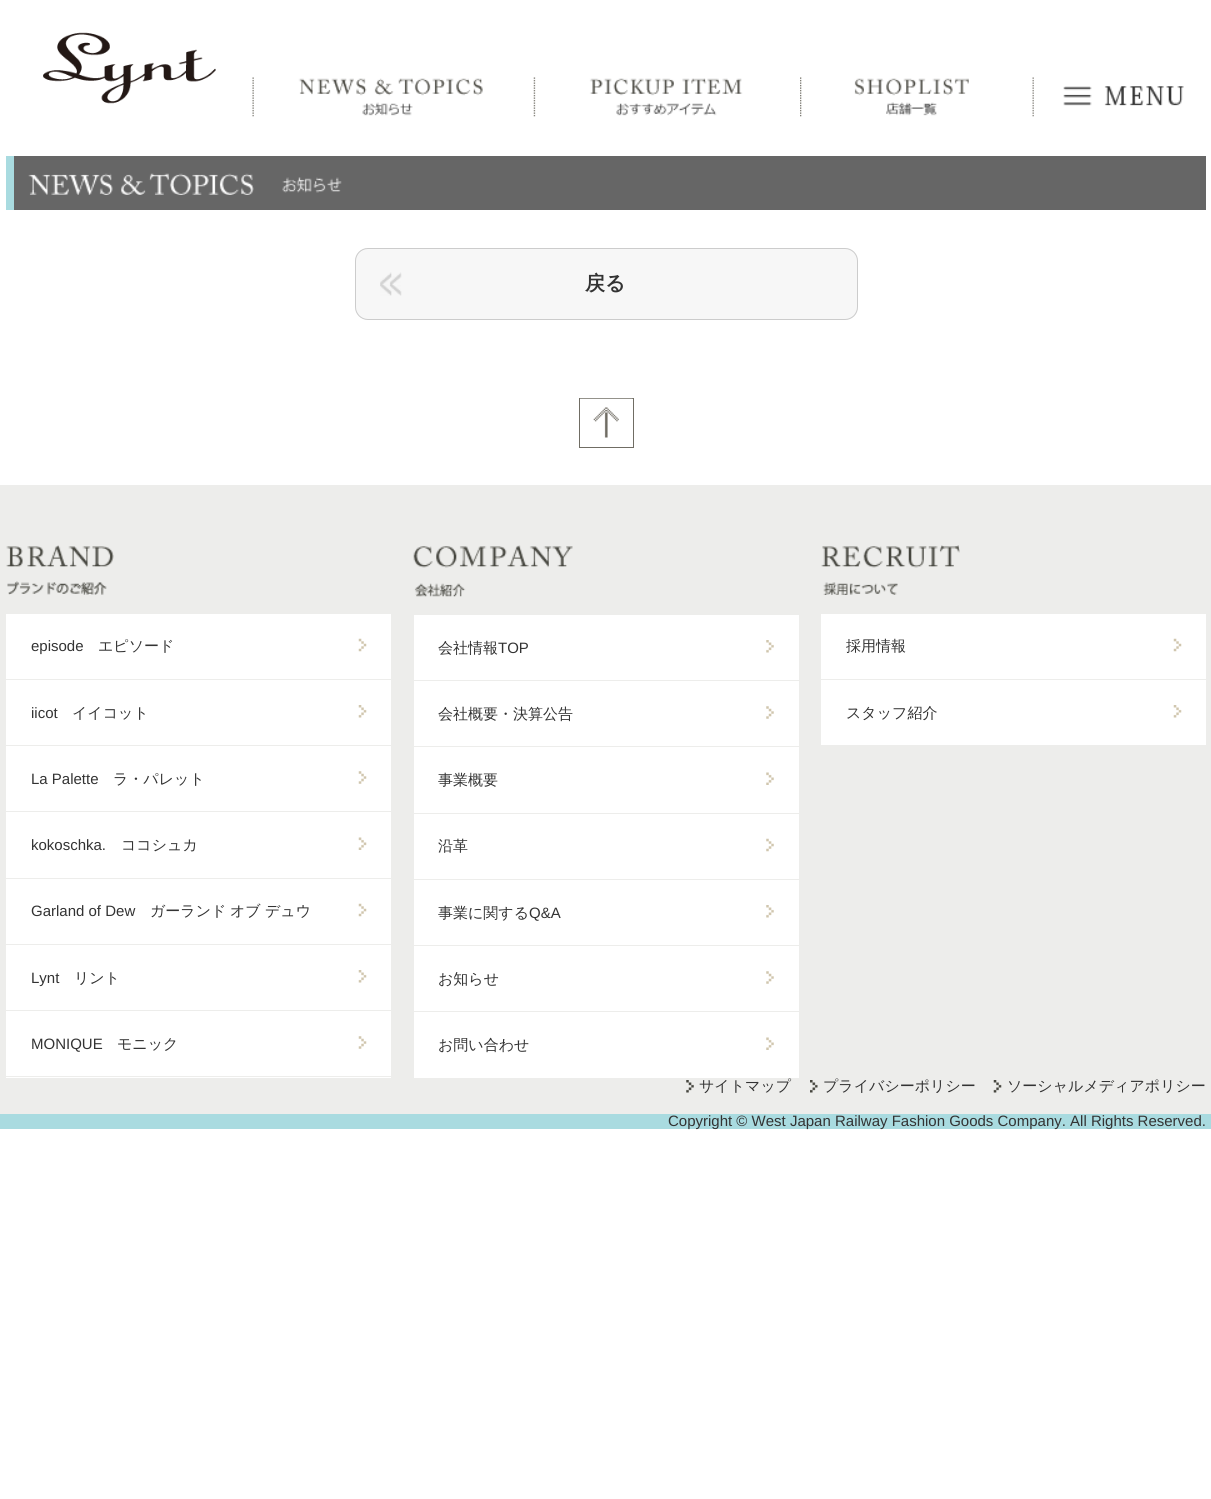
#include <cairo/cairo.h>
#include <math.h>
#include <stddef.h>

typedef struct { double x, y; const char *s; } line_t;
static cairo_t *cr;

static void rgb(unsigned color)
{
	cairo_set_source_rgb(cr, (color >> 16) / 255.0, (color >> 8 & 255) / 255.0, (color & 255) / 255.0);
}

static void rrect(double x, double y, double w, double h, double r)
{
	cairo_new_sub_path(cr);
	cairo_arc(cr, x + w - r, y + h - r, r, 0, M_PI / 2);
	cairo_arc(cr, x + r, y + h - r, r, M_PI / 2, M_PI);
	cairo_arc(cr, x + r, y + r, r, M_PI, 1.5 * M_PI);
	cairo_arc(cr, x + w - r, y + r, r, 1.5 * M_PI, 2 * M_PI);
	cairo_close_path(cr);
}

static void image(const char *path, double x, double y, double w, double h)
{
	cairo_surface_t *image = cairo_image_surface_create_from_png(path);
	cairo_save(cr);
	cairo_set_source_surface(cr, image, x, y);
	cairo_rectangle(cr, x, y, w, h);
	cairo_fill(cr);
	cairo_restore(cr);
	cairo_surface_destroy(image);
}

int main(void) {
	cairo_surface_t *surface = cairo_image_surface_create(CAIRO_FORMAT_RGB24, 1211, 1499);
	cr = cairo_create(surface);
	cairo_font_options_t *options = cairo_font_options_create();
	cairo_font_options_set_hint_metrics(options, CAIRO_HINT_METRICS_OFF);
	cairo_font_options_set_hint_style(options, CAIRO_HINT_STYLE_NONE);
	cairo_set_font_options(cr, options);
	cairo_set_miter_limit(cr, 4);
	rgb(0xffffff);
	cairo_paint(cr);
	image("img/1.png", 43, 32, 173, 72);
	image("img/2.png", 252, 77, 231, 40);
	image("img/3.png", 533, 77, 210, 40);
	image("img/4.png", 800, 77, 234, 40);
	image("img/5.png", 1063, 86, 121, 20);
	rgb(0x666666);
	cairo_rectangle(cr, 14, 156, 1192, 54);
	cairo_fill(cr);
	rgb(0xa9dbe0);
	cairo_rectangle(cr, 6, 156, 8, 54);
	cairo_fill(cr);
	image("img/6.png", 28, 173, 314, 22);
	rgb(0xf7f7f7);
	rrect(355, 248, 503, 72, 13);
	cairo_fill(cr);
	image("img/7.png", 380, 272, 22, 24);
	rrect(355.5, 248.5, 502, 71, 12.5);
	rgb(0xcccccc);
	cairo_set_line_width(cr, 1);
	cairo_stroke(cr);
	cairo_rectangle(cr, 579.5, 398.5, 54, 49);
	rgb(0x706d64);
	cairo_stroke(cr);
	image("img/8.png", 580, 398, 53, 40);
	rgb(0xededeb);
	cairo_rectangle(cr, 0, 485, 1211, 629);
	cairo_fill(cr);
	image("img/9.png", 6, 545, 108, 50);
	rgb(0xffffff);
	cairo_rectangle(cr, 6, 614, 385, 65);
	cairo_fill(cr);
	image("img/10.png", 358, 638, 9, 14);
	cairo_rectangle(cr, 6, 680, 385, 65);
	cairo_fill(cr);
	image("img/11.png", 358, 705, 9, 13);
	cairo_rectangle(cr, 6, 746, 385, 132);
	cairo_fill(cr);
	rgb(0xededeb);
	cairo_rectangle(cr, 6, 811, 385, 1);
	cairo_fill(cr);
	image("img/12.png", 358, 771, 9, 13);
	image("img/13.png", 358, 837, 9, 13);
	rgb(0xffffff);
	cairo_rectangle(cr, 6, 879, 385, 65);
	cairo_fill(cr);
	image("img/10.png", 358, 903, 9, 14);
	cairo_rectangle(cr, 6, 945, 385, 65);
	cairo_fill(cr);
	image("img/11.png", 358, 970, 9, 13);
	cairo_rectangle(cr, 6, 1011, 385, 67);
	cairo_fill(cr);
	rgb(0xededeb);
	cairo_rectangle(cr, 6, 1076, 385, 1);
	cairo_fill(cr);
	image("img/12.png", 358, 1036, 9, 13);
	image("img/14.png", 413, 545, 160, 52);
	rgb(0xffffff);
	cairo_rectangle(cr, 414, 615, 385, 65);
	cairo_fill(cr);
	image("img/15.png", 766, 640, 8, 13);
	cairo_rectangle(cr, 414, 681, 385, 132);
	cairo_fill(cr);
	rgb(0xededeb);
	cairo_rectangle(cr, 414, 746, 385, 1);
	cairo_fill(cr);
	image("img/16.png", 766, 706, 8, 13);
	image("img/17.png", 766, 772, 8, 13);
	rgb(0xffffff);
	cairo_rectangle(cr, 414, 814, 385, 65);
	cairo_fill(cr);
	image("img/18.png", 766, 838, 8, 14);
	cairo_rectangle(cr, 414, 880, 385, 65);
	cairo_fill(cr);
	image("img/15.png", 766, 905, 8, 13);
	cairo_rectangle(cr, 414, 946, 385, 132);
	cairo_fill(cr);
	rgb(0xededeb);
	cairo_rectangle(cr, 414, 1011, 385, 1);
	cairo_fill(cr);
	image("img/16.png", 766, 971, 8, 13);
	image("img/19.png", 766, 1037, 8, 13);
	image("img/20.png", 821, 545, 139, 50);
	rgb(0xffffff);
	cairo_rectangle(cr, 821, 614, 385, 65);
	cairo_fill(cr);
	image("img/10.png", 1173, 638, 9, 14);
	cairo_rectangle(cr, 821, 680, 385, 65);
	cairo_fill(cr);
	image("img/11.png", 1173, 705, 9, 13);
	image("img/21.png", 686, 1080, 8, 13);
	image("img/22.png", 810, 1080, 8, 13);
	image("img/23.png", 993, 1080, 9, 13);
	rgb(0xa9dbe0);
	cairo_rectangle(cr, 0, 1114, 1211, 15);
	cairo_fill(cr);
	cairo_select_font_face(cr, "WenQuanYi Zen Hei", CAIRO_FONT_SLANT_NORMAL, CAIRO_FONT_WEIGHT_BOLD);
	cairo_set_font_size(cr, 20);
	rgb(0x333333);
	cairo_move_to(cr, 585, 290);
	cairo_show_text(cr, "戻る");
	cairo_select_font_face(cr, "Liberation Sans", CAIRO_FONT_SLANT_NORMAL, CAIRO_FONT_WEIGHT_NORMAL);
	cairo_set_font_size(cr, 15);
	cairo_move_to(cr, 31, 651);
	cairo_show_text(cr, "episode");
	cairo_select_font_face(cr, "WenQuanYi Zen Hei Medium", CAIRO_FONT_SLANT_NORMAL, CAIRO_FONT_WEIGHT_NORMAL);
	cairo_move_to(cr, 98, 651);
	cairo_show_text(cr, "エピソード");
	cairo_select_font_face(cr, "Liberation Sans", CAIRO_FONT_SLANT_NORMAL, CAIRO_FONT_WEIGHT_NORMAL);
	cairo_move_to(cr, 31, 718);
	cairo_show_text(cr, "iicot");
	cairo_select_font_face(cr, "WenQuanYi Zen Hei Medium", CAIRO_FONT_SLANT_NORMAL, CAIRO_FONT_WEIGHT_NORMAL);
	cairo_move_to(cr, 72, 718);
	cairo_show_text(cr, "イイコット");
	cairo_select_font_face(cr, "Liberation Sans", CAIRO_FONT_SLANT_NORMAL, CAIRO_FONT_WEIGHT_NORMAL);
	cairo_move_to(cr, 31, 784);
	cairo_show_text(cr, "La Palette");
	cairo_select_font_face(cr, "WenQuanYi Zen Hei Medium", CAIRO_FONT_SLANT_NORMAL, CAIRO_FONT_WEIGHT_NORMAL);
	cairo_move_to(cr, 113, 784);
	cairo_show_text(cr, "ラ・パレット");
	cairo_select_font_face(cr, "Liberation Sans", CAIRO_FONT_SLANT_NORMAL, CAIRO_FONT_WEIGHT_NORMAL);
	cairo_move_to(cr, 31, 850);
	cairo_show_text(cr, "kokoschka.");
	cairo_select_font_face(cr, "WenQuanYi Zen Hei Medium", CAIRO_FONT_SLANT_NORMAL, CAIRO_FONT_WEIGHT_NORMAL);
	cairo_move_to(cr, 121, 850);
	cairo_show_text(cr, "ココシュカ");
	cairo_select_font_face(cr, "Liberation Sans", CAIRO_FONT_SLANT_NORMAL, CAIRO_FONT_WEIGHT_NORMAL);
	cairo_move_to(cr, 31, 916);
	cairo_show_text(cr, "Garland of Dew");
	cairo_select_font_face(cr, "WenQuanYi Zen Hei Medium", CAIRO_FONT_SLANT_NORMAL, CAIRO_FONT_WEIGHT_NORMAL);
	{
		static const line_t items[] = {
			{150, 916, "ガーランド"},
			{230, 916, "オブ"},
			{265, 916, "デュウ"},
		};
		for (size_t i = 0; i < sizeof items / sizeof *items; i++) {
			cairo_move_to(cr, items[i].x, items[i].y);
			cairo_show_text(cr, items[i].s);
		}
	}
	cairo_select_font_face(cr, "Liberation Sans", CAIRO_FONT_SLANT_NORMAL, CAIRO_FONT_WEIGHT_NORMAL);
	cairo_move_to(cr, 31, 983);
	cairo_show_text(cr, "Lynt");
	cairo_select_font_face(cr, "WenQuanYi Zen Hei Medium", CAIRO_FONT_SLANT_NORMAL, CAIRO_FONT_WEIGHT_NORMAL);
	cairo_move_to(cr, 74, 983);
	cairo_show_text(cr, "リント");
	cairo_select_font_face(cr, "Liberation Sans", CAIRO_FONT_SLANT_NORMAL, CAIRO_FONT_WEIGHT_NORMAL);
	cairo_move_to(cr, 31, 1049);
	cairo_show_text(cr, "MONIQUE");
	cairo_select_font_face(cr, "WenQuanYi Zen Hei Medium", CAIRO_FONT_SLANT_NORMAL, CAIRO_FONT_WEIGHT_NORMAL);
	cairo_move_to(cr, 117, 1049);
	cairo_show_text(cr, "モニック");
	cairo_move_to(cr, 438, 653);
	cairo_show_text(cr, "会社情報");
	cairo_select_font_face(cr, "Liberation Sans", CAIRO_FONT_SLANT_NORMAL, CAIRO_FONT_WEIGHT_NORMAL);
	cairo_move_to(cr, 498, 653);
	cairo_show_text(cr, "TOP");
	cairo_select_font_face(cr, "WenQuanYi Zen Hei Medium", CAIRO_FONT_SLANT_NORMAL, CAIRO_FONT_WEIGHT_NORMAL);
	{
		static const line_t items[] = {
			{438, 719, "会社概要・決算公告"},
			{438, 785, "事業概要"},
			{438, 851, "沿革"},
			{438, 918, "事業に関する"},
		};
		for (size_t i = 0; i < sizeof items / sizeof *items; i++) {
			cairo_move_to(cr, items[i].x, items[i].y);
			cairo_show_text(cr, items[i].s);
		}
	}
	cairo_select_font_face(cr, "Liberation Sans", CAIRO_FONT_SLANT_NORMAL, CAIRO_FONT_WEIGHT_NORMAL);
	cairo_move_to(cr, 529, 918);
	cairo_show_text(cr, "Q&A");
	cairo_select_font_face(cr, "WenQuanYi Zen Hei Medium", CAIRO_FONT_SLANT_NORMAL, CAIRO_FONT_WEIGHT_NORMAL);
	{
		static const line_t items[] = {
			{438, 984, "お知らせ"},
			{438, 1050, "お問い合わせ"},
			{846, 651, "採用情報"},
			{846, 718, "スタッフ紹介"},
			{699, 1091, "サイトマップ"},
			{823, 1091, "プライバシーポリシー"},
			{1007, 1091, "ソーシャルメディアポリシー"},
		};
		for (size_t i = 0; i < sizeof items / sizeof *items; i++) {
			cairo_move_to(cr, items[i].x, items[i].y);
			cairo_show_text(cr, items[i].s);
		}
	}
	cairo_select_font_face(cr, "Liberation Sans", CAIRO_FONT_SLANT_NORMAL, CAIRO_FONT_WEIGHT_NORMAL);
	cairo_move_to(cr, 668, 1126);
	cairo_show_text(cr, "Copyright © West Japan Railway Fashion Goods Company. All Rights Reserved.");
	cairo_surface_write_to_png(surface, "page.png");
	cairo_font_options_destroy(options);
	cairo_destroy(cr);
	cairo_surface_destroy(surface);
	return 0;
}
